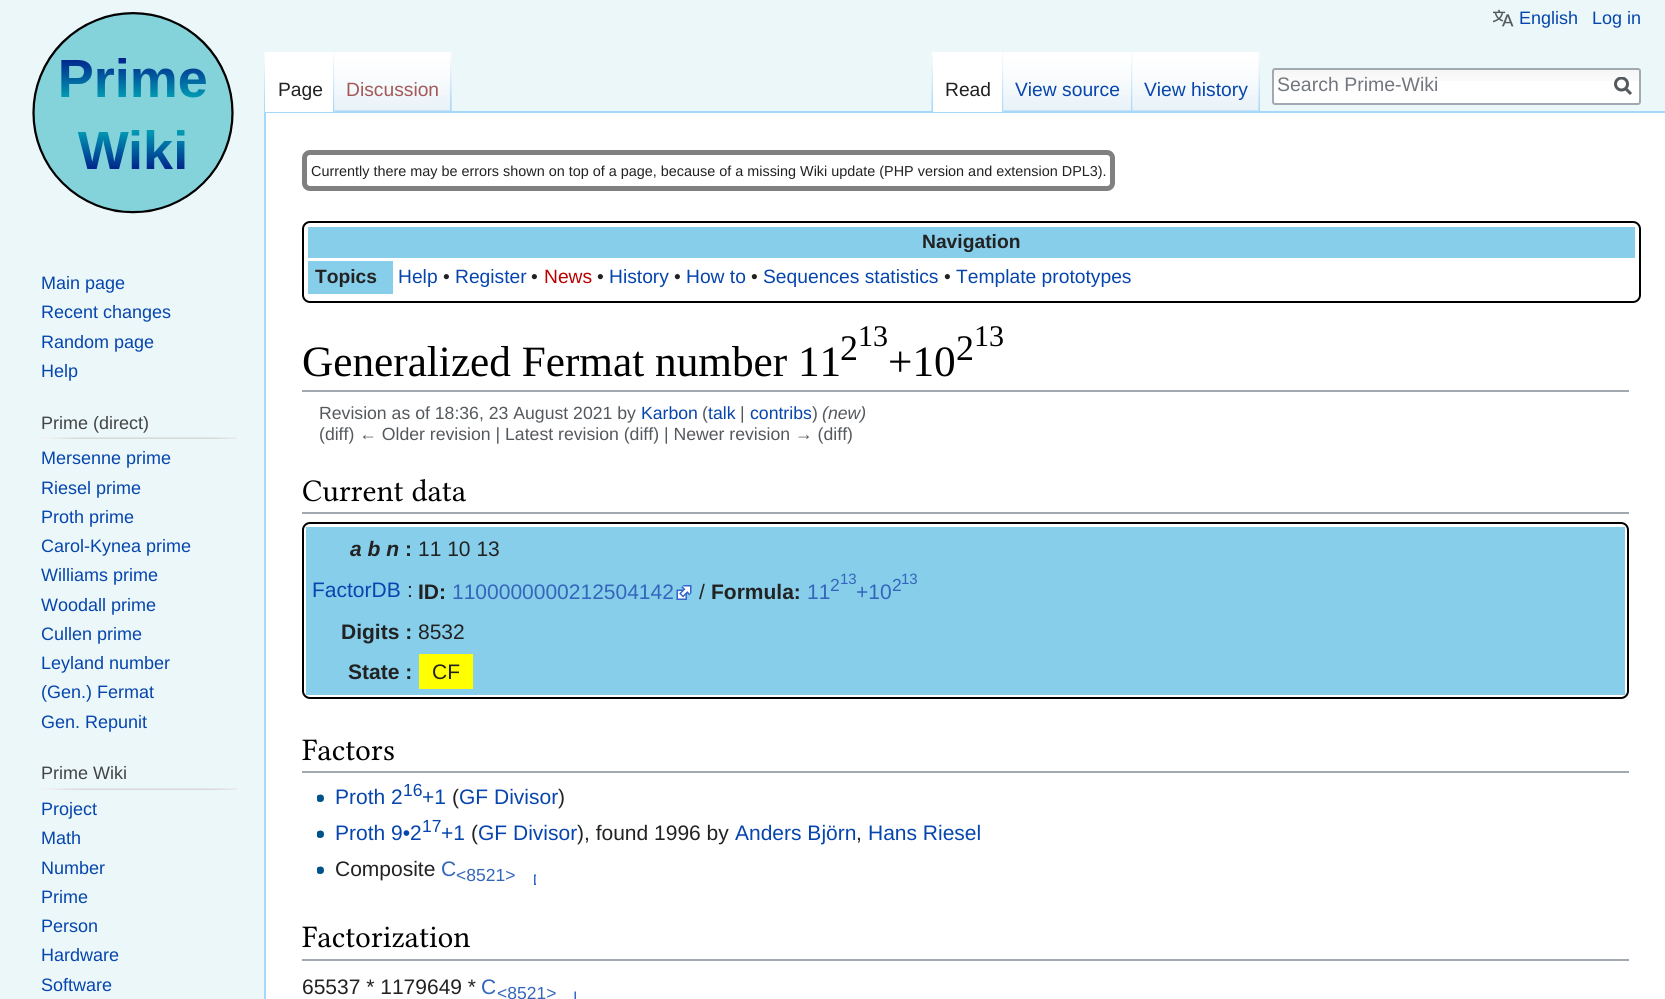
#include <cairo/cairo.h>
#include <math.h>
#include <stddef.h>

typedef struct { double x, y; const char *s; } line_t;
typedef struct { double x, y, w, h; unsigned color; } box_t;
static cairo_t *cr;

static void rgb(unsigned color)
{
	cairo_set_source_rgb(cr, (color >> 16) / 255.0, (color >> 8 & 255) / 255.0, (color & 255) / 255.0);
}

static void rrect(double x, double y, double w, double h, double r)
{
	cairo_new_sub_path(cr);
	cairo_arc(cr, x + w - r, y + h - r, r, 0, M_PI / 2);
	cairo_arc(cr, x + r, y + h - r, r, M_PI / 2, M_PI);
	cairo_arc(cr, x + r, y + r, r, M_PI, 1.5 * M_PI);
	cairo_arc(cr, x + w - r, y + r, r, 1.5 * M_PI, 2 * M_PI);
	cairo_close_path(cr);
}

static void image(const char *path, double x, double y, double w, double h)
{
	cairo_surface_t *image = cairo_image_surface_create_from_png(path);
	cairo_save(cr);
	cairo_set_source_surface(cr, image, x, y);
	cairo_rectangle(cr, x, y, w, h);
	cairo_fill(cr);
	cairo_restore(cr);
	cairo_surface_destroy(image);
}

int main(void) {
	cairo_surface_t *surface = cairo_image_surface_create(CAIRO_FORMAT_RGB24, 1665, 999);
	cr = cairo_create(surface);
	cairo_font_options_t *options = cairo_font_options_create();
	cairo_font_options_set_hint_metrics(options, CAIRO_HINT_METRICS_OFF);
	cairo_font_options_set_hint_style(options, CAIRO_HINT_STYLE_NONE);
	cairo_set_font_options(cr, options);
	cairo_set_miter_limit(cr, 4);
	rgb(0xebf7f9);
	cairo_paint(cr);
	image("img/1.png", 1493, 9, 21, 18);
	image("img/2.png", 264, 52, 1, 59);
	image("img/3.png", 451, 52, 1, 59);
	{
		static const box_t items[] = {
			{264, 111, 1401, 2, 0xa7d7f9},
			{264, 111, 2, 888, 0xa7d7f9},
			{265, 52, 70, 60, 0xffffff},
		};
		for (size_t i = 0; i < sizeof items / sizeof *items; i++) {
			rgb(items[i].color);
			cairo_rectangle(cr, items[i].x, items[i].y, items[i].w, items[i].h);
			cairo_fill(cr);
		}
	}
	image("img/4.png", 333, 52, 2, 60);
	image("img/5.png", 334, 52, 118, 60);
	image("img/6.png", 450, 52, 2, 59);
	image("img/7.png", 931, 52, 2, 59);
	cairo_rectangle(cr, 933, 52, 71, 60);
	cairo_fill(cr);
	image("img/4.png", 1002, 52, 2, 60);
	image("img/8.png", 1003, 52, 130, 60);
	image("img/9.png", 1131, 52, 2, 59);
	image("img/10.png", 1132, 52, 127, 59);
	image("img/11.png", 1258, 52, 2, 59);
	rrect(1272, 68, 369, 37, 3);
	cairo_fill(cr);
	image("img/12.png", 1272, 68, 369, 13);
	rrect(1273, 69, 367, 35, 2);
	rgb(0xa2a9b1);
	cairo_stroke(cr);
	cairo_new_path(cr);
	cairo_move_to(cr, 1631, 94);
	cairo_line_to(cr, 1625, 88);
	rgb(0x54595d);
	cairo_set_line_width(cr, 3);
	cairo_stroke(cr);
	cairo_save(cr);
	cairo_rectangle(cr, 1614, 77, 18, 19);
	cairo_clip(cr);
	cairo_arc(cr, 1621.5, 84, 6, 0, 2 * M_PI);
	cairo_stroke(cr);
	cairo_restore(cr);
	image("img/13.png", 32, 12, 202, 202);
	image("img/14.png", 40, 437, 197, 2);
	image("img/14.png", 40, 788, 197, 2);
	rgb(0xffffff);
	cairo_rectangle(cr, 266, 113, 1399, 886);
	cairo_fill(cr);
	rrect(304.5, 152.5, 808, 36, 5.5);
	rgb(0x808080);
	cairo_set_line_width(cr, 5);
	cairo_stroke(cr);
	rrect(303, 222, 1337, 80, 7);
	rgb(0x000000);
	cairo_set_line_width(cr, 2);
	cairo_stroke(cr);
	{
		static const box_t items[] = {
			{308, 227, 1327, 31, 0x87ceeb},
			{308, 261, 85, 33, 0x87ceeb},
			{302, 390, 1327, 2, 0xa2a9b1},
			{302, 512, 1327, 2, 0xa2a9b1},
		};
		for (size_t i = 0; i < sizeof items / sizeof *items; i++) {
			rgb(items[i].color);
			cairo_rectangle(cr, items[i].x, items[i].y, items[i].w, items[i].h);
			cairo_fill(cr);
		}
	}
	rrect(303, 523, 1325, 175, 7);
	rgb(0x000000);
	cairo_stroke(cr);
	rgb(0x87ceeb);
	cairo_rectangle(cr, 306, 527, 1319, 168);
	cairo_fill(cr);
	image("img/15.png", 676, 585, 16, 15);
	rgb(0xffff00);
	cairo_rectangle(cr, 419, 654, 54, 35);
	cairo_fill(cr);
	rgb(0xa2a9b1);
	cairo_rectangle(cr, 302, 771, 1327, 2);
	cairo_fill(cr);
	image("img/16.png", 317, 794, 7, 8);
	image("img/16.png", 317, 830, 7, 8);
	image("img/16.png", 317, 866, 7, 8);
	image("img/17.png", 534, 874, 2, 11);
	cairo_rectangle(cr, 302, 959, 1327, 2);
	cairo_fill(cr);
	image("img/18.png", 574, 991, 2, 8);
	cairo_select_font_face(cr, "Liberation Sans", CAIRO_FONT_SLANT_NORMAL, CAIRO_FONT_WEIGHT_NORMAL);
	cairo_set_font_size(cr, 18);
	rgb(0x0645ad);
	cairo_move_to(cr, 1519, 24);
	cairo_show_text(cr, "English");
	cairo_move_to(cr, 1592, 24);
	cairo_show_text(cr, "Log in");
	cairo_set_font_size(cr, 19.25);
	rgb(0x222222);
	cairo_move_to(cr, 278, 96);
	cairo_show_text(cr, "Page");
	rgb(0xa55858);
	cairo_move_to(cr, 346, 96);
	cairo_show_text(cr, "Discussion");
	rgb(0x222222);
	cairo_move_to(cr, 945, 96);
	cairo_show_text(cr, "Read");
	rgb(0x0645ad);
	cairo_move_to(cr, 1015, 96);
	cairo_show_text(cr, "View source");
	cairo_move_to(cr, 1144, 96);
	cairo_show_text(cr, "View history");
	cairo_set_font_size(cr, 19.5);
	rgb(0x72777d);
	cairo_move_to(cr, 1277, 91);
	cairo_show_text(cr, "Search Prime-Wiki");
	cairo_set_font_size(cr, 18);
	rgb(0x0645ad);
	{
		static const line_t items[] = {
			{41, 289, "Main page"},
			{41, 318, "Recent changes"},
			{41, 348, "Random page"},
			{41, 377, "Help"},
		};
		for (size_t i = 0; i < sizeof items / sizeof *items; i++) {
			cairo_move_to(cr, items[i].x, items[i].y);
			cairo_show_text(cr, items[i].s);
		}
	}
	rgb(0x444444);
	cairo_move_to(cr, 41, 429);
	cairo_show_text(cr, "Prime (direct)");
	rgb(0x0645ad);
	{
		static const line_t items[] = {
			{41, 464, "Mersenne prime"},
			{41, 494, "Riesel prime"},
			{41, 523, "Proth prime"},
			{41, 552, "Carol-Kynea prime"},
			{41, 581, "Williams prime"},
			{41, 611, "Woodall prime"},
			{41, 640, "Cullen prime"},
			{41, 669, "Leyland number"},
			{41, 698, "(Gen.) Fermat"},
			{41, 728, "Gen. Repunit"},
		};
		for (size_t i = 0; i < sizeof items / sizeof *items; i++) {
			cairo_move_to(cr, items[i].x, items[i].y);
			cairo_show_text(cr, items[i].s);
		}
	}
	rgb(0x444444);
	cairo_move_to(cr, 41, 779);
	cairo_show_text(cr, "Prime Wiki");
	rgb(0x0645ad);
	{
		static const line_t items[] = {
			{41, 815, "Project"},
			{41, 844, "Math"},
			{41, 874, "Number"},
			{41, 903, "Prime"},
			{41, 932, "Person"},
			{41, 961, "Hardware"},
			{41, 991, "Software"},
		};
		for (size_t i = 0; i < sizeof items / sizeof *items; i++) {
			cairo_move_to(cr, items[i].x, items[i].y);
			cairo_show_text(cr, items[i].s);
		}
	}
	cairo_set_font_size(cr, 14.4);
	rgb(0x222222);
	cairo_move_to(cr, 311, 176);
	cairo_show_text(cr, "Currently there may be errors shown on top of a page, because of a missing Wiki update (PHP version and extension DPL3).");
	cairo_select_font_face(cr, "Liberation Sans", CAIRO_FONT_SLANT_NORMAL, CAIRO_FONT_WEIGHT_BOLD);
	cairo_set_font_size(cr, 19.25);
	cairo_move_to(cr, 922, 248);
	cairo_show_text(cr, "Navigation");
	cairo_move_to(cr, 315, 283);
	cairo_show_text(cr, "Topics");
	cairo_select_font_face(cr, "Liberation Sans", CAIRO_FONT_SLANT_NORMAL, CAIRO_FONT_WEIGHT_NORMAL);
	rgb(0x0645ad);
	cairo_move_to(cr, 398, 283);
	cairo_show_text(cr, "Help");
	rgb(0x222222);
	cairo_move_to(cr, 443, 283);
	cairo_show_text(cr, "•");
	rgb(0x0645ad);
	cairo_move_to(cr, 455, 283);
	cairo_show_text(cr, "Register");
	rgb(0x222222);
	cairo_move_to(cr, 531, 283);
	cairo_show_text(cr, "•");
	rgb(0xba0000);
	cairo_move_to(cr, 544, 283);
	cairo_show_text(cr, "News");
	rgb(0x222222);
	cairo_move_to(cr, 597, 283);
	cairo_show_text(cr, "•");
	rgb(0x0645ad);
	cairo_move_to(cr, 609, 283);
	cairo_show_text(cr, "History");
	rgb(0x222222);
	cairo_move_to(cr, 674, 283);
	cairo_show_text(cr, "•");
	rgb(0x0645ad);
	cairo_move_to(cr, 686, 283);
	cairo_show_text(cr, "How to");
	rgb(0x222222);
	cairo_move_to(cr, 751, 283);
	cairo_show_text(cr, "•");
	rgb(0x0645ad);
	cairo_move_to(cr, 763, 283);
	cairo_show_text(cr, "Sequences statistics");
	rgb(0x222222);
	cairo_move_to(cr, 944, 283);
	cairo_show_text(cr, "•");
	rgb(0x0645ad);
	cairo_move_to(cr, 956, 283);
	cairo_show_text(cr, "Template prototypes");
	cairo_select_font_face(cr, "Liberation Serif", CAIRO_FONT_SLANT_NORMAL, CAIRO_FONT_WEIGHT_NORMAL);
	cairo_set_font_size(cr, 43.25);
	rgb(0x000000);
	cairo_move_to(cr, 302, 376);
	cairo_show_text(cr, "Generalized Fermat number 11");
	cairo_set_font_size(cr, 36);
	cairo_move_to(cr, 840, 360);
	cairo_show_text(cr, "2");
	cairo_set_font_size(cr, 30);
	cairo_move_to(cr, 858, 346);
	cairo_show_text(cr, "13");
	cairo_set_font_size(cr, 43.25);
	cairo_move_to(cr, 888, 376);
	cairo_show_text(cr, "+10");
	cairo_set_font_size(cr, 36);
	cairo_move_to(cr, 956, 360);
	cairo_show_text(cr, "2");
	cairo_set_font_size(cr, 30);
	cairo_move_to(cr, 974, 346);
	cairo_show_text(cr, "13");
	cairo_select_font_face(cr, "Liberation Sans", CAIRO_FONT_SLANT_NORMAL, CAIRO_FONT_WEIGHT_NORMAL);
	cairo_set_font_size(cr, 17.65);
	rgb(0x54595d);
	cairo_move_to(cr, 319, 419);
	cairo_show_text(cr, "Revision as of 18:36, 23 August 2021 by");
	rgb(0x0645ad);
	cairo_move_to(cr, 641, 419);
	cairo_show_text(cr, "Karbon");
	rgb(0x54595d);
	cairo_move_to(cr, 702, 419);
	cairo_show_text(cr, "(");
	rgb(0x0645ad);
	cairo_move_to(cr, 708, 419);
	cairo_show_text(cr, "talk");
	rgb(0x54595d);
	cairo_move_to(cr, 740, 419);
	cairo_show_text(cr, "|");
	rgb(0x0645ad);
	cairo_move_to(cr, 750, 419);
	cairo_show_text(cr, "contribs");
	rgb(0x54595d);
	cairo_move_to(cr, 812, 419);
	cairo_show_text(cr, ")");
	cairo_select_font_face(cr, "Liberation Sans", CAIRO_FONT_SLANT_ITALIC, CAIRO_FONT_WEIGHT_NORMAL);
	cairo_move_to(cr, 822, 419);
	cairo_show_text(cr, "(new)");
	cairo_select_font_face(cr, "Liberation Sans", CAIRO_FONT_SLANT_NORMAL, CAIRO_FONT_WEIGHT_NORMAL);
	cairo_move_to(cr, 319, 440);
	cairo_show_text(cr, "(diff) ← Older revision | Latest revision (diff) | Newer revision → (diff)");
	cairo_select_font_face(cr, "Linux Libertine", CAIRO_FONT_SLANT_NORMAL, CAIRO_FONT_WEIGHT_NORMAL);
	cairo_set_font_size(cr, 31.5);
	rgb(0x000000);
	cairo_move_to(cr, 302, 501);
	cairo_show_text(cr, "Current data");
	cairo_select_font_face(cr, "Liberation Sans", CAIRO_FONT_SLANT_ITALIC, CAIRO_FONT_WEIGHT_BOLD);
	cairo_set_font_size(cr, 21);
	rgb(0x222222);
	cairo_move_to(cr, 350, 556);
	cairo_show_text(cr, "a b n");
	cairo_select_font_face(cr, "Liberation Sans", CAIRO_FONT_SLANT_NORMAL, CAIRO_FONT_WEIGHT_BOLD);
	cairo_move_to(cr, 405, 556);
	cairo_show_text(cr, ":");
	cairo_select_font_face(cr, "Liberation Sans", CAIRO_FONT_SLANT_NORMAL, CAIRO_FONT_WEIGHT_NORMAL);
	cairo_move_to(cr, 418, 556);
	cairo_show_text(cr, "11 10 13");
	rgb(0x0645ad);
	cairo_move_to(cr, 312, 597);
	cairo_show_text(cr, "FactorDB");
	rgb(0x222222);
	cairo_move_to(cr, 407, 597);
	cairo_show_text(cr, ":");
	cairo_select_font_face(cr, "Liberation Sans", CAIRO_FONT_SLANT_NORMAL, CAIRO_FONT_WEIGHT_BOLD);
	cairo_move_to(cr, 418, 599);
	cairo_show_text(cr, "ID:");
	cairo_select_font_face(cr, "Liberation Sans", CAIRO_FONT_SLANT_NORMAL, CAIRO_FONT_WEIGHT_NORMAL);
	rgb(0x3366bb);
	cairo_move_to(cr, 452, 599);
	cairo_show_text(cr, "1100000000212504142");
	rgb(0x222222);
	cairo_move_to(cr, 699, 599);
	cairo_show_text(cr, "/");
	cairo_select_font_face(cr, "Liberation Sans", CAIRO_FONT_SLANT_NORMAL, CAIRO_FONT_WEIGHT_BOLD);
	cairo_move_to(cr, 711, 599);
	cairo_show_text(cr, "Formula:");
	cairo_select_font_face(cr, "Liberation Sans", CAIRO_FONT_SLANT_NORMAL, CAIRO_FONT_WEIGHT_NORMAL);
	rgb(0x3366bb);
	cairo_move_to(cr, 807, 599);
	cairo_show_text(cr, "11");
	cairo_set_font_size(cr, 17.5);
	cairo_move_to(cr, 830, 591);
	cairo_show_text(cr, "2");
	cairo_set_font_size(cr, 15);
	cairo_move_to(cr, 840, 584);
	cairo_show_text(cr, "13");
	cairo_set_font_size(cr, 21);
	cairo_move_to(cr, 856, 599);
	cairo_show_text(cr, "+10");
	cairo_set_font_size(cr, 17.5);
	cairo_move_to(cr, 892, 591);
	cairo_show_text(cr, "2");
	cairo_set_font_size(cr, 15);
	cairo_move_to(cr, 901, 584);
	cairo_show_text(cr, "13");
	cairo_select_font_face(cr, "Liberation Sans", CAIRO_FONT_SLANT_NORMAL, CAIRO_FONT_WEIGHT_BOLD);
	cairo_set_font_size(cr, 21);
	rgb(0x222222);
	cairo_move_to(cr, 341, 639);
	cairo_show_text(cr, "Digits :");
	cairo_select_font_face(cr, "Liberation Sans", CAIRO_FONT_SLANT_NORMAL, CAIRO_FONT_WEIGHT_NORMAL);
	cairo_move_to(cr, 418, 639);
	cairo_show_text(cr, "8532");
	cairo_select_font_face(cr, "Liberation Sans", CAIRO_FONT_SLANT_NORMAL, CAIRO_FONT_WEIGHT_BOLD);
	cairo_move_to(cr, 348, 679);
	cairo_show_text(cr, "State :");
	cairo_select_font_face(cr, "Liberation Sans", CAIRO_FONT_SLANT_NORMAL, CAIRO_FONT_WEIGHT_NORMAL);
	cairo_move_to(cr, 432, 679);
	cairo_show_text(cr, "CF");
	cairo_select_font_face(cr, "Linux Libertine", CAIRO_FONT_SLANT_NORMAL, CAIRO_FONT_WEIGHT_NORMAL);
	cairo_set_font_size(cr, 31.5);
	rgb(0x000000);
	cairo_move_to(cr, 302, 760);
	cairo_show_text(cr, "Factors");
	cairo_select_font_face(cr, "Liberation Sans", CAIRO_FONT_SLANT_NORMAL, CAIRO_FONT_WEIGHT_NORMAL);
	cairo_set_font_size(cr, 21);
	rgb(0x0645ad);
	cairo_move_to(cr, 335, 804);
	cairo_show_text(cr, "Proth 2");
	cairo_set_font_size(cr, 17.5);
	cairo_move_to(cr, 403, 796);
	cairo_show_text(cr, "16");
	cairo_set_font_size(cr, 21);
	cairo_move_to(cr, 422, 804);
	cairo_show_text(cr, "+1");
	rgb(0x222222);
	cairo_move_to(cr, 452, 804);
	cairo_show_text(cr, "(");
	rgb(0x0645ad);
	cairo_move_to(cr, 459, 804);
	cairo_show_text(cr, "GF Divisor");
	rgb(0x222222);
	cairo_move_to(cr, 558, 804);
	cairo_show_text(cr, ")");
	rgb(0x0645ad);
	cairo_move_to(cr, 335, 840);
	cairo_show_text(cr, "Proth 9•2");
	cairo_set_font_size(cr, 17.5);
	cairo_move_to(cr, 422, 832);
	cairo_show_text(cr, "17");
	cairo_set_font_size(cr, 21);
	cairo_move_to(cr, 441, 840);
	cairo_show_text(cr, "+1");
	rgb(0x222222);
	cairo_move_to(cr, 471, 840);
	cairo_show_text(cr, "(");
	rgb(0x0645ad);
	cairo_move_to(cr, 478, 840);
	cairo_show_text(cr, "GF Divisor");
	rgb(0x222222);
	cairo_move_to(cr, 577, 840);
	cairo_show_text(cr, "), found 1996 by");
	rgb(0x0645ad);
	cairo_move_to(cr, 735, 840);
	cairo_show_text(cr, "Anders Björn");
	rgb(0x222222);
	cairo_move_to(cr, 856, 840);
	cairo_show_text(cr, ",");
	rgb(0x0645ad);
	cairo_move_to(cr, 868, 840);
	cairo_show_text(cr, "Hans Riesel");
	rgb(0x222222);
	cairo_move_to(cr, 335, 876);
	cairo_show_text(cr, "Composite");
	rgb(0x3366bb);
	cairo_move_to(cr, 441, 876);
	cairo_show_text(cr, "C");
	cairo_set_font_size(cr, 17.5);
	cairo_move_to(cr, 456, 881);
	cairo_show_text(cr, "<8521>");
	cairo_select_font_face(cr, "Linux Libertine", CAIRO_FONT_SLANT_NORMAL, CAIRO_FONT_WEIGHT_NORMAL);
	cairo_set_font_size(cr, 31.5);
	rgb(0x000000);
	cairo_move_to(cr, 302, 947);
	cairo_show_text(cr, "Factorization");
	cairo_select_font_face(cr, "Liberation Sans", CAIRO_FONT_SLANT_NORMAL, CAIRO_FONT_WEIGHT_NORMAL);
	cairo_set_font_size(cr, 21);
	rgb(0x222222);
	cairo_move_to(cr, 302, 994);
	cairo_show_text(cr, "65537 * 1179649 *");
	rgb(0x3366bb);
	cairo_move_to(cr, 481, 994);
	cairo_show_text(cr, "C");
	cairo_set_font_size(cr, 17.5);
	cairo_move_to(cr, 497, 999);
	cairo_show_text(cr, "<8521>");
	cairo_surface_write_to_png(surface, "page.png");
	cairo_font_options_destroy(options);
	cairo_destroy(cr);
	cairo_surface_destroy(surface);
	return 0;
}
